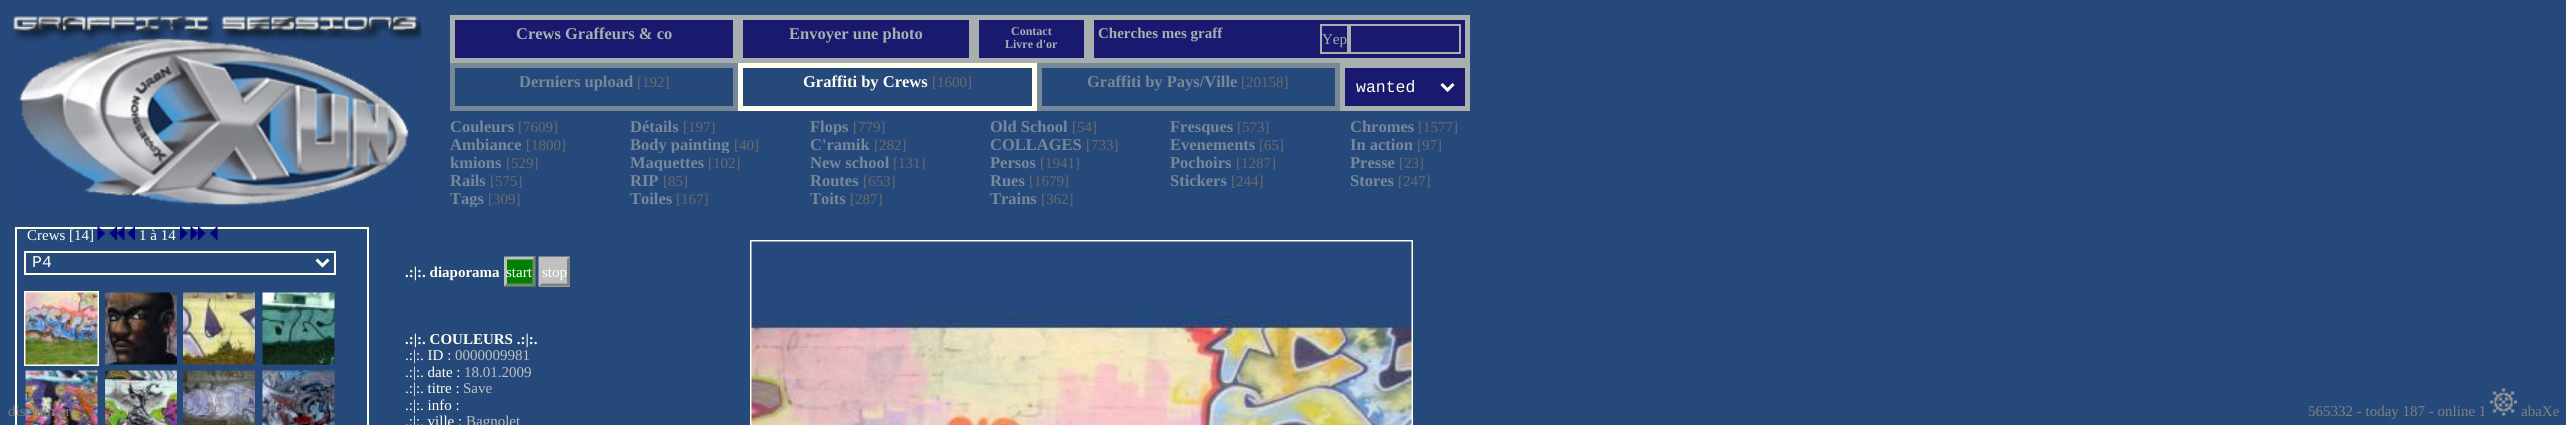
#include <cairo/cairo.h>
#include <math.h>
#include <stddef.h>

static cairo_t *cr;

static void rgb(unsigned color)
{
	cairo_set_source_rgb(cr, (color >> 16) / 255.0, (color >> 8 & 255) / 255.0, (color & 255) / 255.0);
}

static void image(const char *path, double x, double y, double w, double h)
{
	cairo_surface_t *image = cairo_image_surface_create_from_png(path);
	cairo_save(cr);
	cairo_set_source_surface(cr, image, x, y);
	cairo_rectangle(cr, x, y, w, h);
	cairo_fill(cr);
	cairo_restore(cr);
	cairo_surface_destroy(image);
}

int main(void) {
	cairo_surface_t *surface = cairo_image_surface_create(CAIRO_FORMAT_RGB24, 2566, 425);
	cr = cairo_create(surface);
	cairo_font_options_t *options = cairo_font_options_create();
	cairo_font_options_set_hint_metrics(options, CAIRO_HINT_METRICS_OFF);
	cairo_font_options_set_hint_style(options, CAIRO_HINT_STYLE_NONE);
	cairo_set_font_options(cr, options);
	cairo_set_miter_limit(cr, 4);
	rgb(0x26497c);
	cairo_paint(cr);
	image("img/1.png", 7, 7, 415, 203);
	rgb(0x191970);
	cairo_rectangle(cr, 452.5, 17.5, 283, 43);
	cairo_fill_preserve(cr);
	rgb(0xa9afaf);
	cairo_set_line_width(cr, 5);
	cairo_stroke(cr);
	rgb(0x191970);
	cairo_rectangle(cr, 740.5, 17.5, 231, 43);
	cairo_fill_preserve(cr);
	rgb(0xa9afaf);
	cairo_stroke(cr);
	rgb(0x191970);
	cairo_rectangle(cr, 976.5, 17.5, 110, 43);
	cairo_fill_preserve(cr);
	rgb(0xa9afaf);
	cairo_stroke(cr);
	rgb(0x191970);
	cairo_rectangle(cr, 1091.5, 17.5, 376, 43);
	cairo_fill_preserve(cr);
	rgb(0xa9afaf);
	cairo_stroke(cr);
	cairo_rectangle(cr, 1321, 25, 27, 28);
	cairo_set_line_width(cr, 2);
	cairo_stroke(cr);
	cairo_rectangle(cr, 1350, 25, 110, 28);
	cairo_stroke(cr);
	cairo_rectangle(cr, 452.5, 65.5, 283, 43);
	rgb(0x778899);
	cairo_set_line_width(cr, 5);
	cairo_stroke(cr);
	cairo_rectangle(cr, 740.5, 65.5, 294, 43);
	rgb(0xfffff0);
	cairo_stroke(cr);
	cairo_rectangle(cr, 1039.5, 65.5, 298, 43);
	rgb(0x778899);
	cairo_stroke(cr);
	rgb(0x191970);
	cairo_rectangle(cr, 1342.5, 65.5, 125, 43);
	cairo_fill_preserve(cr);
	rgb(0xa9afaf);
	cairo_stroke(cr);
	cairo_new_path(cr);
	cairo_move_to(cr, 1441.5, 84);
	cairo_line_to(cr, 1447.5, 90);
	cairo_line_to(cr, 1453.5, 84);
	rgb(0xfffff0);
	cairo_set_line_width(cr, 3);
	cairo_stroke(cr);
	cairo_rectangle(cr, 16, 228, 352, 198);
	cairo_set_line_width(cr, 2);
	cairo_stroke(cr);
	image("img/2.png", 97, 226, 8, 14);
	image("img/3.png", 109, 226, 8, 14);
	image("img/4.png", 117, 226, 8, 14);
	image("img/3.png", 127, 226, 8, 14);
	image("img/5.png", 180, 226, 8, 14);
	image("img/2.png", 190, 226, 8, 14);
	image("img/5.png", 198, 226, 8, 14);
	image("img/4.png", 210, 226, 8, 14);
	cairo_rectangle(cr, 25, 252, 310, 22);
	cairo_stroke(cr);
	cairo_new_path(cr);
	cairo_move_to(cr, 316.5, 259.5);
	cairo_line_to(cr, 322.5, 265.5);
	cairo_line_to(cr, 328.5, 259.5);
	cairo_set_line_width(cr, 3);
	cairo_stroke(cr);
	cairo_rectangle(cr, 25, 292, 73, 73);
	cairo_set_line_width(cr, 2);
	cairo_stroke(cr);
	image("img/6.png", 25, 292, 73, 73);
	image("img/7.png", 105, 292, 72, 73);
	image("img/8.png", 183, 292, 72, 73);
	image("img/9.png", 262, 292, 73, 73);
	image("img/10.png", 25, 370, 73, 55);
	image("img/11.png", 105, 370, 72, 55);
	image("img/12.png", 183, 370, 72, 55);
	image("img/13.png", 262, 370, 73, 55);
	rgb(0x008000);
	cairo_rectangle(cr, 504, 257, 32, 30);
	cairo_fill(cr);
	rgb(0xc0c0c0);
	cairo_new_path(cr);
	cairo_move_to(cr, 504, 256.5);
	cairo_line_to(cr, 535.5, 256.5);
	cairo_line_to(cr, 532.5, 259.5);
	cairo_line_to(cr, 507, 259.5);
	cairo_close_path(cr);
	cairo_fill(cr);
	rgb(0x808080);
	cairo_new_path(cr);
	cairo_move_to(cr, 535.5, 256.5);
	cairo_line_to(cr, 535.5, 286.5);
	cairo_line_to(cr, 532.5, 283.5);
	cairo_line_to(cr, 532.5, 259.5);
	cairo_close_path(cr);
	cairo_fill(cr);
	cairo_new_path(cr);
	cairo_move_to(cr, 535.5, 286.5);
	cairo_line_to(cr, 504, 286.5);
	cairo_line_to(cr, 507, 283.5);
	cairo_line_to(cr, 532.5, 283.5);
	cairo_close_path(cr);
	cairo_fill(cr);
	rgb(0xc0c0c0);
	cairo_new_path(cr);
	cairo_move_to(cr, 504, 286.5);
	cairo_line_to(cr, 504, 256.5);
	cairo_line_to(cr, 507, 259.5);
	cairo_line_to(cr, 507, 283.5);
	cairo_close_path(cr);
	cairo_fill(cr);
	cairo_rectangle(cr, 539, 257, 31, 30);
	cairo_fill(cr);
	cairo_new_path(cr);
	cairo_move_to(cr, 538.5, 256.5);
	cairo_line_to(cr, 570, 256.5);
	cairo_line_to(cr, 567, 259.5);
	cairo_line_to(cr, 541.5, 259.5);
	cairo_close_path(cr);
	cairo_fill(cr);
	rgb(0x808080);
	cairo_new_path(cr);
	cairo_move_to(cr, 570, 256.5);
	cairo_line_to(cr, 570, 286.5);
	cairo_line_to(cr, 567, 283.5);
	cairo_line_to(cr, 567, 259.5);
	cairo_close_path(cr);
	cairo_fill(cr);
	cairo_new_path(cr);
	cairo_move_to(cr, 570, 286.5);
	cairo_line_to(cr, 538.5, 286.5);
	cairo_line_to(cr, 541.5, 283.5);
	cairo_line_to(cr, 567, 283.5);
	cairo_close_path(cr);
	cairo_fill(cr);
	rgb(0xc0c0c0);
	cairo_new_path(cr);
	cairo_move_to(cr, 538.5, 286.5);
	cairo_line_to(cr, 538.5, 256.5);
	cairo_line_to(cr, 541.5, 259.5);
	cairo_line_to(cr, 541.5, 283.5);
	cairo_close_path(cr);
	cairo_fill(cr);
	cairo_rectangle(cr, 751, 241, 661, 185);
	rgb(0xfffff0);
	cairo_stroke(cr);
	image("img/14.png", 751, 241, 661, 184);
	image("img/15.png", 2489, 388, 28, 28);
	cairo_select_font_face(cr, "Liberation Serif", CAIRO_FONT_SLANT_NORMAL, CAIRO_FONT_WEIGHT_BOLD);
	cairo_set_font_size(cr, 16.5);
	rgb(0xa9afaf);
	cairo_move_to(cr, 516, 39);
	cairo_show_text(cr, "Crews Graffeurs & co");
	cairo_move_to(cr, 789, 39);
	cairo_show_text(cr, "Envoyer une photo");
	cairo_set_font_size(cr, 12);
	cairo_move_to(cr, 1011, 35);
	cairo_show_text(cr, "Contact");
	cairo_move_to(cr, 1005, 48);
	cairo_show_text(cr, "Livre d'or");
	cairo_set_font_size(cr, 15);
	cairo_move_to(cr, 1098, 38);
	cairo_show_text(cr, "Cherches mes graff");
	cairo_select_font_face(cr, "Liberation Serif", CAIRO_FONT_SLANT_NORMAL, CAIRO_FONT_WEIGHT_NORMAL);
	cairo_move_to(cr, 1322, 44);
	cairo_show_text(cr, "Yep");
	cairo_select_font_face(cr, "Liberation Serif", CAIRO_FONT_SLANT_NORMAL, CAIRO_FONT_WEIGHT_BOLD);
	cairo_set_font_size(cr, 16.5);
	rgb(0x778899);
	cairo_move_to(cr, 519, 87);
	cairo_show_text(cr, "Derniers upload");
	cairo_select_font_face(cr, "Liberation Serif", CAIRO_FONT_SLANT_NORMAL, CAIRO_FONT_WEIGHT_NORMAL);
	cairo_set_font_size(cr, 15);
	rgb(0x6a6a6a);
	cairo_move_to(cr, 637, 87);
	cairo_show_text(cr, "[192]");
	cairo_select_font_face(cr, "Liberation Serif", CAIRO_FONT_SLANT_NORMAL, CAIRO_FONT_WEIGHT_BOLD);
	cairo_set_font_size(cr, 16.5);
	rgb(0xfffff0);
	cairo_move_to(cr, 803, 87);
	cairo_show_text(cr, "Graffiti by Crews");
	cairo_select_font_face(cr, "Liberation Serif", CAIRO_FONT_SLANT_NORMAL, CAIRO_FONT_WEIGHT_NORMAL);
	cairo_set_font_size(cr, 15);
	rgb(0x6a6a6a);
	cairo_move_to(cr, 932, 87);
	cairo_show_text(cr, "[1600]");
	cairo_select_font_face(cr, "Liberation Serif", CAIRO_FONT_SLANT_NORMAL, CAIRO_FONT_WEIGHT_BOLD);
	cairo_set_font_size(cr, 16.5);
	rgb(0x778899);
	cairo_move_to(cr, 1087, 87);
	cairo_show_text(cr, "Graffiti by Pays/Ville");
	cairo_select_font_face(cr, "Liberation Serif", CAIRO_FONT_SLANT_NORMAL, CAIRO_FONT_WEIGHT_NORMAL);
	cairo_set_font_size(cr, 15);
	rgb(0x6a6a6a);
	cairo_move_to(cr, 1241, 87);
	cairo_show_text(cr, "[20158]");
	cairo_select_font_face(cr, "Liberation Mono", CAIRO_FONT_SLANT_NORMAL, CAIRO_FONT_WEIGHT_NORMAL);
	cairo_set_font_size(cr, 16.5);
	rgb(0xfffff0);
	cairo_move_to(cr, 1356, 92);
	cairo_show_text(cr, "wanted");
	cairo_select_font_face(cr, "Liberation Serif", CAIRO_FONT_SLANT_NORMAL, CAIRO_FONT_WEIGHT_BOLD);
	rgb(0x778899);
	cairo_move_to(cr, 450, 132);
	cairo_show_text(cr, "Couleurs");
	cairo_select_font_face(cr, "Liberation Serif", CAIRO_FONT_SLANT_NORMAL, CAIRO_FONT_WEIGHT_NORMAL);
	cairo_set_font_size(cr, 15);
	rgb(0x6a6a6a);
	cairo_move_to(cr, 518, 132);
	cairo_show_text(cr, "[7609]");
	cairo_select_font_face(cr, "Liberation Serif", CAIRO_FONT_SLANT_NORMAL, CAIRO_FONT_WEIGHT_BOLD);
	cairo_set_font_size(cr, 16.5);
	rgb(0x778899);
	cairo_move_to(cr, 630, 132);
	cairo_show_text(cr, "Détails");
	cairo_select_font_face(cr, "Liberation Serif", CAIRO_FONT_SLANT_NORMAL, CAIRO_FONT_WEIGHT_NORMAL);
	cairo_set_font_size(cr, 15);
	rgb(0x6a6a6a);
	cairo_move_to(cr, 683, 132);
	cairo_show_text(cr, "[197]");
	cairo_save(cr);
	cairo_rectangle(cr, 810, 117, 180, 18);
	cairo_clip(cr);
	cairo_select_font_face(cr, "Liberation Serif", CAIRO_FONT_SLANT_NORMAL, CAIRO_FONT_WEIGHT_BOLD);
	cairo_set_font_size(cr, 16.5);
	rgb(0x778899);
	cairo_move_to(cr, 810, 132);
	cairo_show_text(cr, "Flops");
	cairo_restore(cr);
	cairo_move_to(cr, 853, 132);
	cairo_show_text(cr, "[779]");
	cairo_select_font_face(cr, "Liberation Serif", CAIRO_FONT_SLANT_NORMAL, CAIRO_FONT_WEIGHT_BOLD);
	cairo_set_font_size(cr, 16.5);
	rgb(0x778899);
	cairo_move_to(cr, 990, 132);
	cairo_show_text(cr, "Old School");
	cairo_select_font_face(cr, "Liberation Serif", CAIRO_FONT_SLANT_NORMAL, CAIRO_FONT_WEIGHT_NORMAL);
	cairo_set_font_size(cr, 15);
	rgb(0x6a6a6a);
	cairo_move_to(cr, 1072, 132);
	cairo_show_text(cr, "[54]");
	cairo_save(cr);
	cairo_rectangle(cr, 1170, 117, 180, 18);
	cairo_clip(cr);
	cairo_select_font_face(cr, "Liberation Serif", CAIRO_FONT_SLANT_NORMAL, CAIRO_FONT_WEIGHT_BOLD);
	cairo_set_font_size(cr, 16.5);
	rgb(0x778899);
	cairo_move_to(cr, 1170, 132);
	cairo_show_text(cr, "Fresques");
	cairo_restore(cr);
	cairo_move_to(cr, 1237, 132);
	cairo_show_text(cr, "[573]");
	cairo_select_font_face(cr, "Liberation Serif", CAIRO_FONT_SLANT_NORMAL, CAIRO_FONT_WEIGHT_BOLD);
	cairo_set_font_size(cr, 16.5);
	rgb(0x778899);
	cairo_move_to(cr, 1350, 132);
	cairo_show_text(cr, "Chromes");
	cairo_select_font_face(cr, "Liberation Serif", CAIRO_FONT_SLANT_NORMAL, CAIRO_FONT_WEIGHT_NORMAL);
	cairo_set_font_size(cr, 15);
	rgb(0x6a6a6a);
	cairo_move_to(cr, 1418, 132);
	cairo_show_text(cr, "[1577]");
	cairo_select_font_face(cr, "Liberation Serif", CAIRO_FONT_SLANT_NORMAL, CAIRO_FONT_WEIGHT_BOLD);
	cairo_set_font_size(cr, 16.5);
	rgb(0x778899);
	cairo_move_to(cr, 450, 150);
	cairo_show_text(cr, "Ambiance");
	cairo_select_font_face(cr, "Liberation Serif", CAIRO_FONT_SLANT_NORMAL, CAIRO_FONT_WEIGHT_NORMAL);
	cairo_set_font_size(cr, 15);
	rgb(0x6a6a6a);
	cairo_move_to(cr, 526, 150);
	cairo_show_text(cr, "[1800]");
	cairo_save(cr);
	cairo_rectangle(cr, 630, 135, 180, 18);
	cairo_clip(cr);
	cairo_select_font_face(cr, "Liberation Serif", CAIRO_FONT_SLANT_NORMAL, CAIRO_FONT_WEIGHT_BOLD);
	cairo_set_font_size(cr, 16.5);
	rgb(0x778899);
	cairo_move_to(cr, 630, 150);
	cairo_show_text(cr, "Body painting");
	cairo_restore(cr);
	cairo_move_to(cr, 734, 150);
	cairo_show_text(cr, "[40]");
	cairo_select_font_face(cr, "Liberation Serif", CAIRO_FONT_SLANT_NORMAL, CAIRO_FONT_WEIGHT_BOLD);
	cairo_set_font_size(cr, 16.5);
	rgb(0x778899);
	cairo_move_to(cr, 810, 150);
	cairo_show_text(cr, "C'ramik");
	cairo_select_font_face(cr, "Liberation Serif", CAIRO_FONT_SLANT_NORMAL, CAIRO_FONT_WEIGHT_NORMAL);
	cairo_set_font_size(cr, 15);
	rgb(0x6a6a6a);
	cairo_move_to(cr, 874, 150);
	cairo_show_text(cr, "[282]");
	cairo_select_font_face(cr, "Liberation Serif", CAIRO_FONT_SLANT_NORMAL, CAIRO_FONT_WEIGHT_BOLD);
	cairo_set_font_size(cr, 16.5);
	rgb(0x778899);
	cairo_move_to(cr, 990, 150);
	cairo_show_text(cr, "COLLAGES");
	cairo_select_font_face(cr, "Liberation Serif", CAIRO_FONT_SLANT_NORMAL, CAIRO_FONT_WEIGHT_NORMAL);
	cairo_set_font_size(cr, 15);
	rgb(0x6a6a6a);
	cairo_move_to(cr, 1086, 150);
	cairo_show_text(cr, "[733]");
	cairo_select_font_face(cr, "Liberation Serif", CAIRO_FONT_SLANT_NORMAL, CAIRO_FONT_WEIGHT_BOLD);
	cairo_set_font_size(cr, 16.5);
	rgb(0x778899);
	cairo_move_to(cr, 1170, 150);
	cairo_show_text(cr, "Evenements");
	cairo_select_font_face(cr, "Liberation Serif", CAIRO_FONT_SLANT_NORMAL, CAIRO_FONT_WEIGHT_NORMAL);
	cairo_set_font_size(cr, 15);
	rgb(0x6a6a6a);
	cairo_move_to(cr, 1259, 150);
	cairo_show_text(cr, "[65]");
	cairo_select_font_face(cr, "Liberation Serif", CAIRO_FONT_SLANT_NORMAL, CAIRO_FONT_WEIGHT_BOLD);
	cairo_set_font_size(cr, 16.5);
	rgb(0x778899);
	cairo_move_to(cr, 1350, 150);
	cairo_show_text(cr, "In action");
	cairo_select_font_face(cr, "Liberation Serif", CAIRO_FONT_SLANT_NORMAL, CAIRO_FONT_WEIGHT_NORMAL);
	cairo_set_font_size(cr, 15);
	rgb(0x6a6a6a);
	cairo_move_to(cr, 1417, 150);
	cairo_show_text(cr, "[97]");
	cairo_select_font_face(cr, "Liberation Serif", CAIRO_FONT_SLANT_NORMAL, CAIRO_FONT_WEIGHT_BOLD);
	cairo_set_font_size(cr, 16.5);
	rgb(0x778899);
	cairo_move_to(cr, 450, 168);
	cairo_show_text(cr, "kmions");
	cairo_select_font_face(cr, "Liberation Serif", CAIRO_FONT_SLANT_NORMAL, CAIRO_FONT_WEIGHT_NORMAL);
	cairo_set_font_size(cr, 15);
	rgb(0x6a6a6a);
	cairo_move_to(cr, 506, 168);
	cairo_show_text(cr, "[529]");
	cairo_save(cr);
	cairo_rectangle(cr, 630, 153, 180, 18);
	cairo_clip(cr);
	cairo_select_font_face(cr, "Liberation Serif", CAIRO_FONT_SLANT_NORMAL, CAIRO_FONT_WEIGHT_BOLD);
	cairo_set_font_size(cr, 16.5);
	rgb(0x778899);
	cairo_move_to(cr, 630, 168);
	cairo_show_text(cr, "Maquettes");
	cairo_restore(cr);
	cairo_move_to(cr, 708, 168);
	cairo_show_text(cr, "[102]");
	cairo_select_font_face(cr, "Liberation Serif", CAIRO_FONT_SLANT_NORMAL, CAIRO_FONT_WEIGHT_BOLD);
	cairo_set_font_size(cr, 16.5);
	rgb(0x778899);
	cairo_move_to(cr, 810, 168);
	cairo_show_text(cr, "New school");
	cairo_select_font_face(cr, "Liberation Serif", CAIRO_FONT_SLANT_NORMAL, CAIRO_FONT_WEIGHT_NORMAL);
	cairo_set_font_size(cr, 15);
	rgb(0x6a6a6a);
	cairo_move_to(cr, 893, 168);
	cairo_show_text(cr, "[131]");
	cairo_select_font_face(cr, "Liberation Serif", CAIRO_FONT_SLANT_NORMAL, CAIRO_FONT_WEIGHT_BOLD);
	cairo_set_font_size(cr, 16.5);
	rgb(0x778899);
	cairo_move_to(cr, 990, 168);
	cairo_show_text(cr, "Persos");
	cairo_select_font_face(cr, "Liberation Serif", CAIRO_FONT_SLANT_NORMAL, CAIRO_FONT_WEIGHT_NORMAL);
	cairo_set_font_size(cr, 15);
	rgb(0x6a6a6a);
	cairo_move_to(cr, 1040, 168);
	cairo_show_text(cr, "[1941]");
	cairo_select_font_face(cr, "Liberation Serif", CAIRO_FONT_SLANT_NORMAL, CAIRO_FONT_WEIGHT_BOLD);
	cairo_set_font_size(cr, 16.5);
	rgb(0x778899);
	cairo_move_to(cr, 1170, 168);
	cairo_show_text(cr, "Pochoirs");
	cairo_select_font_face(cr, "Liberation Serif", CAIRO_FONT_SLANT_NORMAL, CAIRO_FONT_WEIGHT_NORMAL);
	cairo_set_font_size(cr, 15);
	rgb(0x6a6a6a);
	cairo_move_to(cr, 1236, 168);
	cairo_show_text(cr, "[1287]");
	cairo_select_font_face(cr, "Liberation Serif", CAIRO_FONT_SLANT_NORMAL, CAIRO_FONT_WEIGHT_BOLD);
	cairo_set_font_size(cr, 16.5);
	rgb(0x778899);
	cairo_move_to(cr, 1350, 168);
	cairo_show_text(cr, "Presse");
	cairo_select_font_face(cr, "Liberation Serif", CAIRO_FONT_SLANT_NORMAL, CAIRO_FONT_WEIGHT_NORMAL);
	cairo_set_font_size(cr, 15);
	rgb(0x6a6a6a);
	cairo_move_to(cr, 1399, 168);
	cairo_show_text(cr, "[23]");
	cairo_select_font_face(cr, "Liberation Serif", CAIRO_FONT_SLANT_NORMAL, CAIRO_FONT_WEIGHT_BOLD);
	cairo_set_font_size(cr, 16.5);
	rgb(0x778899);
	cairo_move_to(cr, 450, 186);
	cairo_show_text(cr, "Rails");
	cairo_select_font_face(cr, "Liberation Serif", CAIRO_FONT_SLANT_NORMAL, CAIRO_FONT_WEIGHT_NORMAL);
	cairo_set_font_size(cr, 15);
	rgb(0x6a6a6a);
	cairo_move_to(cr, 490, 186);
	cairo_show_text(cr, "[575]");
	cairo_select_font_face(cr, "Liberation Serif", CAIRO_FONT_SLANT_NORMAL, CAIRO_FONT_WEIGHT_BOLD);
	cairo_set_font_size(cr, 16.5);
	rgb(0x778899);
	cairo_move_to(cr, 630, 186);
	cairo_show_text(cr, "RIP");
	cairo_select_font_face(cr, "Liberation Serif", CAIRO_FONT_SLANT_NORMAL, CAIRO_FONT_WEIGHT_NORMAL);
	cairo_set_font_size(cr, 15);
	rgb(0x6a6a6a);
	cairo_move_to(cr, 663, 186);
	cairo_show_text(cr, "[85]");
	cairo_select_font_face(cr, "Liberation Serif", CAIRO_FONT_SLANT_NORMAL, CAIRO_FONT_WEIGHT_BOLD);
	cairo_set_font_size(cr, 16.5);
	rgb(0x778899);
	cairo_move_to(cr, 810, 186);
	cairo_show_text(cr, "Routes");
	cairo_select_font_face(cr, "Liberation Serif", CAIRO_FONT_SLANT_NORMAL, CAIRO_FONT_WEIGHT_NORMAL);
	cairo_set_font_size(cr, 15);
	rgb(0x6a6a6a);
	cairo_move_to(cr, 863, 186);
	cairo_show_text(cr, "[653]");
	cairo_select_font_face(cr, "Liberation Serif", CAIRO_FONT_SLANT_NORMAL, CAIRO_FONT_WEIGHT_BOLD);
	cairo_set_font_size(cr, 16.5);
	rgb(0x778899);
	cairo_move_to(cr, 990, 186);
	cairo_show_text(cr, "Rues");
	cairo_select_font_face(cr, "Liberation Serif", CAIRO_FONT_SLANT_NORMAL, CAIRO_FONT_WEIGHT_NORMAL);
	cairo_set_font_size(cr, 15);
	rgb(0x6a6a6a);
	cairo_move_to(cr, 1029, 186);
	cairo_show_text(cr, "[1679]");
	cairo_select_font_face(cr, "Liberation Serif", CAIRO_FONT_SLANT_NORMAL, CAIRO_FONT_WEIGHT_BOLD);
	cairo_set_font_size(cr, 16.5);
	rgb(0x778899);
	cairo_move_to(cr, 1170, 186);
	cairo_show_text(cr, "Stickers");
	cairo_select_font_face(cr, "Liberation Serif", CAIRO_FONT_SLANT_NORMAL, CAIRO_FONT_WEIGHT_NORMAL);
	cairo_set_font_size(cr, 15);
	rgb(0x6a6a6a);
	cairo_move_to(cr, 1231, 186);
	cairo_show_text(cr, "[244]");
	cairo_select_font_face(cr, "Liberation Serif", CAIRO_FONT_SLANT_NORMAL, CAIRO_FONT_WEIGHT_BOLD);
	cairo_set_font_size(cr, 16.5);
	rgb(0x778899);
	cairo_move_to(cr, 1350, 186);
	cairo_show_text(cr, "Stores");
	cairo_select_font_face(cr, "Liberation Serif", CAIRO_FONT_SLANT_NORMAL, CAIRO_FONT_WEIGHT_NORMAL);
	cairo_set_font_size(cr, 15);
	rgb(0x6a6a6a);
	cairo_move_to(cr, 1398, 186);
	cairo_show_text(cr, "[247]");
	cairo_save(cr);
	cairo_rectangle(cr, 450, 189, 180, 18);
	cairo_clip(cr);
	cairo_select_font_face(cr, "Liberation Serif", CAIRO_FONT_SLANT_NORMAL, CAIRO_FONT_WEIGHT_BOLD);
	cairo_set_font_size(cr, 16.5);
	rgb(0x778899);
	cairo_move_to(cr, 450, 204);
	cairo_show_text(cr, "Tags");
	cairo_restore(cr);
	cairo_move_to(cr, 488, 204);
	cairo_show_text(cr, "[309]");
	cairo_select_font_face(cr, "Liberation Serif", CAIRO_FONT_SLANT_NORMAL, CAIRO_FONT_WEIGHT_BOLD);
	cairo_set_font_size(cr, 16.5);
	rgb(0x778899);
	cairo_move_to(cr, 630, 204);
	cairo_show_text(cr, "Toiles");
	cairo_select_font_face(cr, "Liberation Serif", CAIRO_FONT_SLANT_NORMAL, CAIRO_FONT_WEIGHT_NORMAL);
	cairo_set_font_size(cr, 15);
	rgb(0x6a6a6a);
	cairo_move_to(cr, 676, 204);
	cairo_show_text(cr, "[167]");
	cairo_select_font_face(cr, "Liberation Serif", CAIRO_FONT_SLANT_NORMAL, CAIRO_FONT_WEIGHT_BOLD);
	cairo_set_font_size(cr, 16.5);
	rgb(0x778899);
	cairo_move_to(cr, 810, 204);
	cairo_show_text(cr, "Toits");
	cairo_select_font_face(cr, "Liberation Serif", CAIRO_FONT_SLANT_NORMAL, CAIRO_FONT_WEIGHT_NORMAL);
	cairo_set_font_size(cr, 15);
	rgb(0x6a6a6a);
	cairo_move_to(cr, 850, 204);
	cairo_show_text(cr, "[287]");
	cairo_select_font_face(cr, "Liberation Serif", CAIRO_FONT_SLANT_NORMAL, CAIRO_FONT_WEIGHT_BOLD);
	cairo_set_font_size(cr, 16.5);
	rgb(0x778899);
	cairo_move_to(cr, 990, 204);
	cairo_show_text(cr, "Trains");
	cairo_select_font_face(cr, "Liberation Serif", CAIRO_FONT_SLANT_NORMAL, CAIRO_FONT_WEIGHT_NORMAL);
	cairo_set_font_size(cr, 15);
	rgb(0x6a6a6a);
	cairo_move_to(cr, 1041, 204);
	cairo_show_text(cr, "[362]");
	rgb(0xfffff0);
	cairo_move_to(cr, 27, 240);
	cairo_show_text(cr, "Crews [14]");
	cairo_move_to(cr, 139, 240);
	cairo_show_text(cr, "1 à 14");
	cairo_select_font_face(cr, "Liberation Mono", CAIRO_FONT_SLANT_NORMAL, CAIRO_FONT_WEIGHT_NORMAL);
	cairo_set_font_size(cr, 16.5);
	cairo_move_to(cr, 32, 267);
	cairo_show_text(cr, "P4");
	cairo_select_font_face(cr, "Liberation Serif", CAIRO_FONT_SLANT_NORMAL, CAIRO_FONT_WEIGHT_BOLD);
	cairo_set_font_size(cr, 15);
	cairo_move_to(cr, 405, 277);
	cairo_show_text(cr, ".:|:. diaporama");
	cairo_select_font_face(cr, "Liberation Serif", CAIRO_FONT_SLANT_NORMAL, CAIRO_FONT_WEIGHT_NORMAL);
	rgb(0xffffff);
	cairo_move_to(cr, 506, 277);
	cairo_show_text(cr, "start");
	cairo_move_to(cr, 542, 277);
	cairo_show_text(cr, "stop");
	rgb(0x808080);
	cairo_move_to(cr, 8, 416);
	cairo_show_text(cr, "disclaimer");
	cairo_select_font_face(cr, "Liberation Serif", CAIRO_FONT_SLANT_NORMAL, CAIRO_FONT_WEIGHT_BOLD);
	rgb(0xfffff0);
	cairo_move_to(cr, 405, 344);
	cairo_show_text(cr, ".:|:. COULEURS .:|:.");
	cairo_select_font_face(cr, "Liberation Serif", CAIRO_FONT_SLANT_NORMAL, CAIRO_FONT_WEIGHT_NORMAL);
	cairo_move_to(cr, 405, 360);
	cairo_show_text(cr, ".:|:. ID :");
	rgb(0xc0c0c0);
	cairo_move_to(cr, 455, 360);
	cairo_show_text(cr, "0000009981");
	rgb(0xfffff0);
	cairo_move_to(cr, 405, 377);
	cairo_show_text(cr, ".:|:. date :");
	rgb(0xc0c0c0);
	cairo_move_to(cr, 464, 377);
	cairo_show_text(cr, "18.01.2009");
	rgb(0xfffff0);
	cairo_move_to(cr, 405, 393);
	cairo_show_text(cr, ".:|:. titre :");
	rgb(0xc0c0c0);
	cairo_move_to(cr, 463, 393);
	cairo_show_text(cr, "Save");
	rgb(0xfffff0);
	cairo_move_to(cr, 405, 410);
	cairo_show_text(cr, ".:|:. info :");
	cairo_move_to(cr, 405, 426);
	cairo_show_text(cr, ".:|:. ville :");
	rgb(0xc0c0c0);
	cairo_move_to(cr, 466, 426);
	cairo_show_text(cr, "Bagnolet");
	rgb(0x808080);
	cairo_move_to(cr, 2308, 416);
	cairo_show_text(cr, "565332 - today 187 - online 1");
	cairo_move_to(cr, 2521, 416);
	cairo_show_text(cr, "abaXe");
	cairo_surface_write_to_png(surface, "page.png");
	cairo_font_options_destroy(options);
	cairo_destroy(cr);
	cairo_surface_destroy(surface);
	return 0;
}
